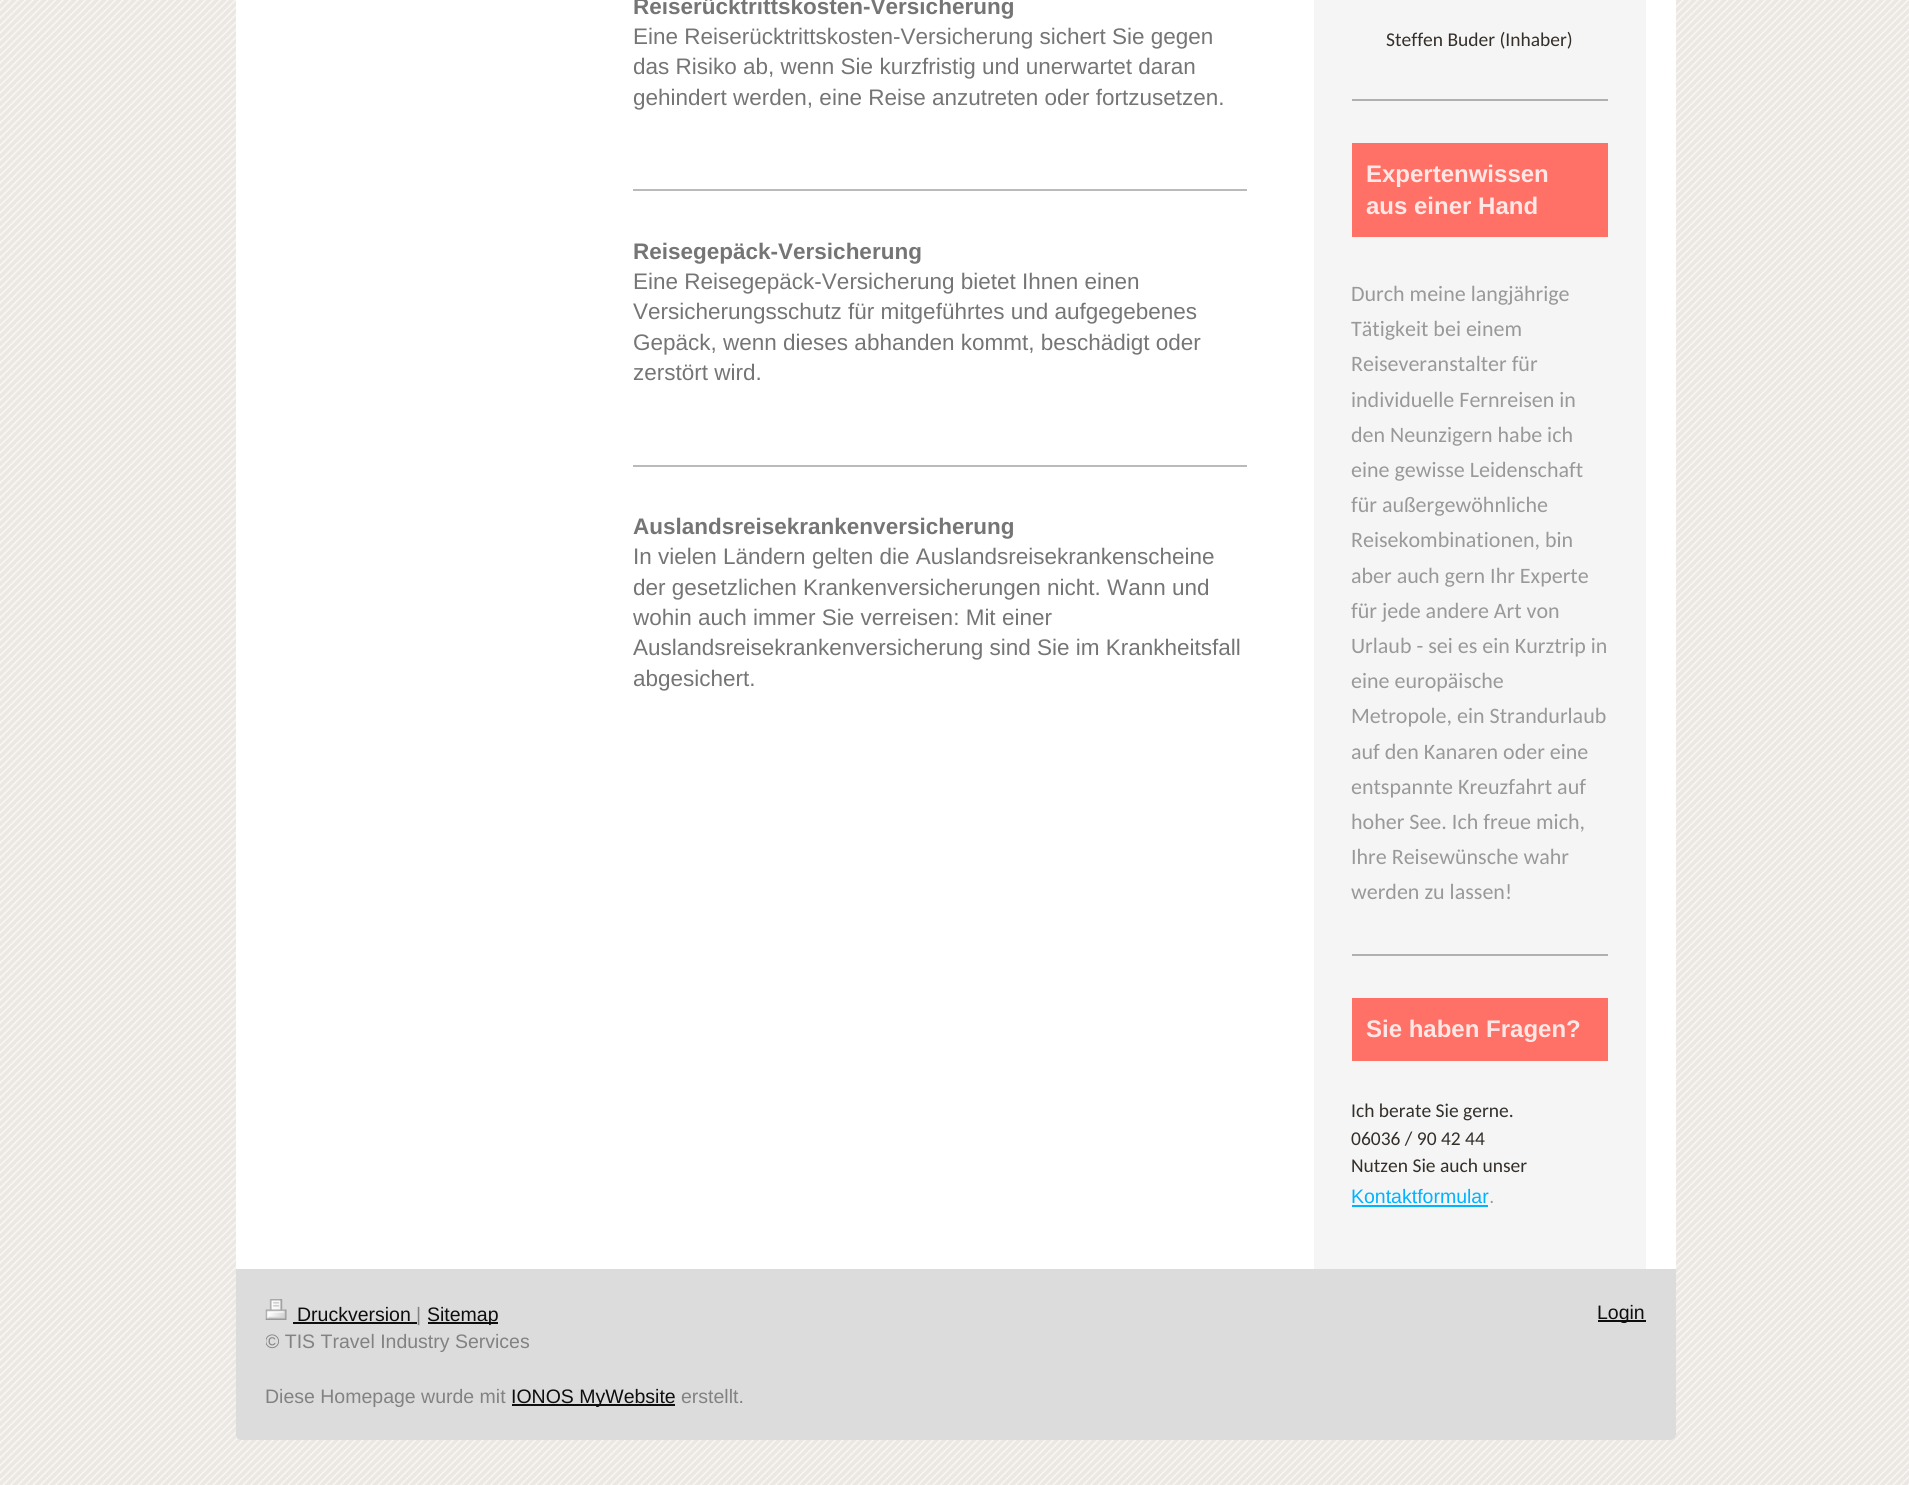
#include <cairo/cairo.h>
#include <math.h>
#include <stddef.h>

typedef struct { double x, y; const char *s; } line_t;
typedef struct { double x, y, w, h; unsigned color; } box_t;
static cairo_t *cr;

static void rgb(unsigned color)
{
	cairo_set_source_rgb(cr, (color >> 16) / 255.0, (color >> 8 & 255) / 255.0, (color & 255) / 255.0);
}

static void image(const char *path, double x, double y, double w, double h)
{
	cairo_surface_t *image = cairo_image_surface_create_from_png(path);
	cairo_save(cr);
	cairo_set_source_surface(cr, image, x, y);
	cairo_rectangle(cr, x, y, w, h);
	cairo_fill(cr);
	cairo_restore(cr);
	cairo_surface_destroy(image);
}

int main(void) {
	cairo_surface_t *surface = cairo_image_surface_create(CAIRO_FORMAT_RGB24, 1909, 1485);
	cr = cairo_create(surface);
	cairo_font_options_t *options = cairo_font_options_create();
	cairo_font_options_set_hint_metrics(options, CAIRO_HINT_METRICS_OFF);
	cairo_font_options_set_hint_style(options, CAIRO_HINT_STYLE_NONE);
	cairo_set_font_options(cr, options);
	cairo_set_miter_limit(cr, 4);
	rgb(0xebe7e2);
	cairo_paint(cr);
	image("img/1.png", 0, 0, 1909, 1485);
	rgb(0xffffff);
	cairo_new_path(cr);
	cairo_move_to(cr, 236, -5);
	cairo_line_to(cr, 1676, -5);
	cairo_line_to(cr, 1676, 1435);
	cairo_curve_to(cr, 1676, 1438, 1674, 1440, 1671, 1440);
	cairo_line_to(cr, 241, 1440);
	cairo_curve_to(cr, 238, 1440, 236, 1438, 236, 1435);
	cairo_close_path(cr);
	cairo_fill(cr);
	{
		static const box_t items[] = {
			{633, 189, 614, 2, 0xbababa},
			{633, 465, 614, 2, 0xbababa},
			{1314, 0, 332, 1269, 0xf5f5f5},
			{1352, 99, 256, 2, 0xb0b0b0},
			{1352, 143, 256, 94, 0xff7066},
			{1352, 954, 256, 2, 0xb0b0b0},
			{1352, 998, 256, 63, 0xff7066},
			{1352, 1205, 136, 2, 0x00b3ff},
		};
		for (size_t i = 0; i < sizeof items / sizeof *items; i++) {
			rgb(items[i].color);
			cairo_rectangle(cr, items[i].x, items[i].y, items[i].w, items[i].h);
			cairo_fill(cr);
		}
	}
	rgb(0xdcdcdc);
	cairo_new_path(cr);
	cairo_move_to(cr, 236, 1269);
	cairo_line_to(cr, 1676, 1269);
	cairo_line_to(cr, 1676, 1435);
	cairo_curve_to(cr, 1676, 1438, 1674, 1440, 1671, 1440);
	cairo_line_to(cr, 241, 1440);
	cairo_curve_to(cr, 238, 1440, 236, 1438, 236, 1435);
	cairo_close_path(cr);
	cairo_fill(cr);
	image("img/2.png", 265, 1299, 22, 21);
	{
		static const box_t items[] = {
			{293, 1322, 124, 2, 0x0e0e0e},
			{428, 1322, 70, 2, 0x0e0e0e},
			{512, 1404, 163, 2, 0x0e0e0e},
			{1598, 1320, 48, 2, 0x0e0e0e},
		};
		for (size_t i = 0; i < sizeof items / sizeof *items; i++) {
			rgb(items[i].color);
			cairo_rectangle(cr, items[i].x, items[i].y, items[i].w, items[i].h);
			cairo_fill(cr);
		}
	}
	cairo_select_font_face(cr, "Liberation Sans", CAIRO_FONT_SLANT_NORMAL, CAIRO_FONT_WEIGHT_BOLD);
	cairo_set_font_size(cr, 22.5);
	rgb(0x757575);
	cairo_move_to(cr, 633, 14);
	cairo_show_text(cr, "Reiserücktrittskosten-Versicherung");
	cairo_select_font_face(cr, "Liberation Sans", CAIRO_FONT_SLANT_NORMAL, CAIRO_FONT_WEIGHT_NORMAL);
	{
		static const line_t items[] = {
			{633, 44, "Eine Reiserücktrittskosten-Versicherung sichert Sie gegen"},
			{633, 74, "das Risiko ab, wenn Sie kurzfristig und unerwartet daran"},
			{633, 105, "gehindert werden, eine Reise anzutreten oder fortzusetzen."},
		};
		for (size_t i = 0; i < sizeof items / sizeof *items; i++) {
			cairo_move_to(cr, items[i].x, items[i].y);
			cairo_show_text(cr, items[i].s);
		}
	}
	cairo_select_font_face(cr, "Liberation Sans", CAIRO_FONT_SLANT_NORMAL, CAIRO_FONT_WEIGHT_BOLD);
	cairo_move_to(cr, 633, 259);
	cairo_show_text(cr, "Reisegepäck-Versicherung");
	cairo_select_font_face(cr, "Liberation Sans", CAIRO_FONT_SLANT_NORMAL, CAIRO_FONT_WEIGHT_NORMAL);
	{
		static const line_t items[] = {
			{633, 289, "Eine Reisegepäck-Versicherung bietet Ihnen einen"},
			{633, 319, "Versicherungsschutz für mitgeführtes und aufgegebenes"},
			{633, 350, "Gepäck, wenn dieses abhanden kommt, beschädigt oder"},
			{633, 380, "zerstört wird."},
		};
		for (size_t i = 0; i < sizeof items / sizeof *items; i++) {
			cairo_move_to(cr, items[i].x, items[i].y);
			cairo_show_text(cr, items[i].s);
		}
	}
	cairo_select_font_face(cr, "Liberation Sans", CAIRO_FONT_SLANT_NORMAL, CAIRO_FONT_WEIGHT_BOLD);
	cairo_move_to(cr, 633, 534);
	cairo_show_text(cr, "Auslandsreisekrankenversicherung");
	cairo_select_font_face(cr, "Liberation Sans", CAIRO_FONT_SLANT_NORMAL, CAIRO_FONT_WEIGHT_NORMAL);
	{
		static const line_t items[] = {
			{633, 564, "In vielen Ländern gelten die Auslandsreisekrankenscheine"},
			{633, 595, "der gesetzlichen Krankenversicherungen nicht. Wann und"},
			{633, 625, "wohin auch immer Sie verreisen: Mit einer"},
			{633, 655, "Auslandsreisekrankenversicherung sind Sie im Krankheitsfall"},
			{633, 686, "abgesichert."},
		};
		for (size_t i = 0; i < sizeof items / sizeof *items; i++) {
			cairo_move_to(cr, items[i].x, items[i].y);
			cairo_show_text(cr, items[i].s);
		}
	}
	cairo_select_font_face(cr, "Carlito", CAIRO_FONT_SLANT_NORMAL, CAIRO_FONT_WEIGHT_NORMAL);
	cairo_set_font_size(cr, 19.5);
	rgb(0x342f2a);
	cairo_move_to(cr, 1386, 46);
	cairo_show_text(cr, "Steffen Buder (Inhaber)");
	cairo_select_font_face(cr, "Liberation Sans", CAIRO_FONT_SLANT_NORMAL, CAIRO_FONT_WEIGHT_BOLD);
	cairo_set_font_size(cr, 24);
	rgb(0xffe7e6);
	cairo_move_to(cr, 1366, 182);
	cairo_show_text(cr, "Expertenwissen");
	cairo_move_to(cr, 1366, 214);
	cairo_show_text(cr, "aus einer Hand");
	cairo_select_font_face(cr, "Carlito", CAIRO_FONT_SLANT_NORMAL, CAIRO_FONT_WEIGHT_NORMAL);
	cairo_set_font_size(cr, 22);
	rgb(0x999999);
	{
		static const line_t items[] = {
			{1351, 301, "Durch meine langjährige"},
			{1351, 336, "Tätigkeit bei einem"},
			{1351, 371, "Reiseveranstalter für"},
			{1351, 407, "individuelle Fernreisen in"},
			{1351, 442, "den Neunzigern habe ich"},
			{1351, 477, "eine gewisse Leidenschaft"},
			{1351, 512, "für außergewöhnliche"},
			{1351, 547, "Reisekombinationen, bin"},
			{1351, 583, "aber auch gern Ihr Experte"},
			{1351, 618, "für jede andere Art von"},
			{1351, 653, "Urlaub - sei es ein Kurztrip in"},
			{1351, 688, "eine europäische"},
			{1351, 723, "Metropole, ein Strandurlaub"},
			{1351, 759, "auf den Kanaren oder eine"},
			{1351, 794, "entspannte Kreuzfahrt auf"},
			{1351, 829, "hoher See. Ich freue mich,"},
			{1351, 864, "Ihre Reisewünsche wahr"},
			{1351, 899, "werden zu lassen!"},
		};
		for (size_t i = 0; i < sizeof items / sizeof *items; i++) {
			cairo_move_to(cr, items[i].x, items[i].y);
			cairo_show_text(cr, items[i].s);
		}
	}
	cairo_select_font_face(cr, "Liberation Sans", CAIRO_FONT_SLANT_NORMAL, CAIRO_FONT_WEIGHT_BOLD);
	cairo_set_font_size(cr, 24);
	rgb(0xffe7e6);
	cairo_move_to(cr, 1366, 1037);
	cairo_show_text(cr, "Sie haben Fragen?");
	cairo_select_font_face(cr, "Carlito", CAIRO_FONT_SLANT_NORMAL, CAIRO_FONT_WEIGHT_NORMAL);
	cairo_set_font_size(cr, 19.5);
	rgb(0x342f2a);
	{
		static const line_t items[] = {
			{1351, 1117, "Ich berate Sie gerne."},
			{1351, 1145, "06036 / 90 42 44"},
			{1351, 1172, "Nutzen Sie auch unser"},
		};
		for (size_t i = 0; i < sizeof items / sizeof *items; i++) {
			cairo_move_to(cr, items[i].x, items[i].y);
			cairo_show_text(cr, items[i].s);
		}
	}
	cairo_select_font_face(cr, "Liberation Sans", CAIRO_FONT_SLANT_NORMAL, CAIRO_FONT_WEIGHT_NORMAL);
	rgb(0x00b3ff);
	cairo_move_to(cr, 1351, 1203);
	cairo_show_text(cr, "Kontaktformular");
	rgb(0x999999);
	cairo_move_to(cr, 1489, 1203);
	cairo_show_text(cr, ".");
	rgb(0x0e0e0e);
	cairo_move_to(cr, 297, 1321);
	cairo_show_text(cr, "Druckversion");
	rgb(0x828282);
	cairo_move_to(cr, 416, 1321);
	cairo_show_text(cr, "|");
	rgb(0x0e0e0e);
	cairo_move_to(cr, 427, 1321);
	cairo_show_text(cr, "Sitemap");
	cairo_save(cr);
	cairo_rectangle(cr, 266, 1299, 1380, 111);
	cairo_clip(cr);
	rgb(0x828282);
	cairo_move_to(cr, 265, 1348);
	cairo_show_text(cr, "© TIS Travel Industry Services");
	cairo_restore(cr);
	rgb(0x828282);
	cairo_move_to(cr, 265, 1403);
	cairo_show_text(cr, "Diese Homepage wurde mit");
	rgb(0x0e0e0e);
	cairo_move_to(cr, 511, 1403);
	cairo_show_text(cr, "IONOS MyWebsite");
	rgb(0x828282);
	cairo_move_to(cr, 681, 1403);
	cairo_show_text(cr, "erstellt.");
	rgb(0x0e0e0e);
	cairo_move_to(cr, 1597, 1319);
	cairo_show_text(cr, "Login");
	cairo_surface_write_to_png(surface, "page.png");
	cairo_font_options_destroy(options);
	cairo_destroy(cr);
	cairo_surface_destroy(surface);
	return 0;
}
